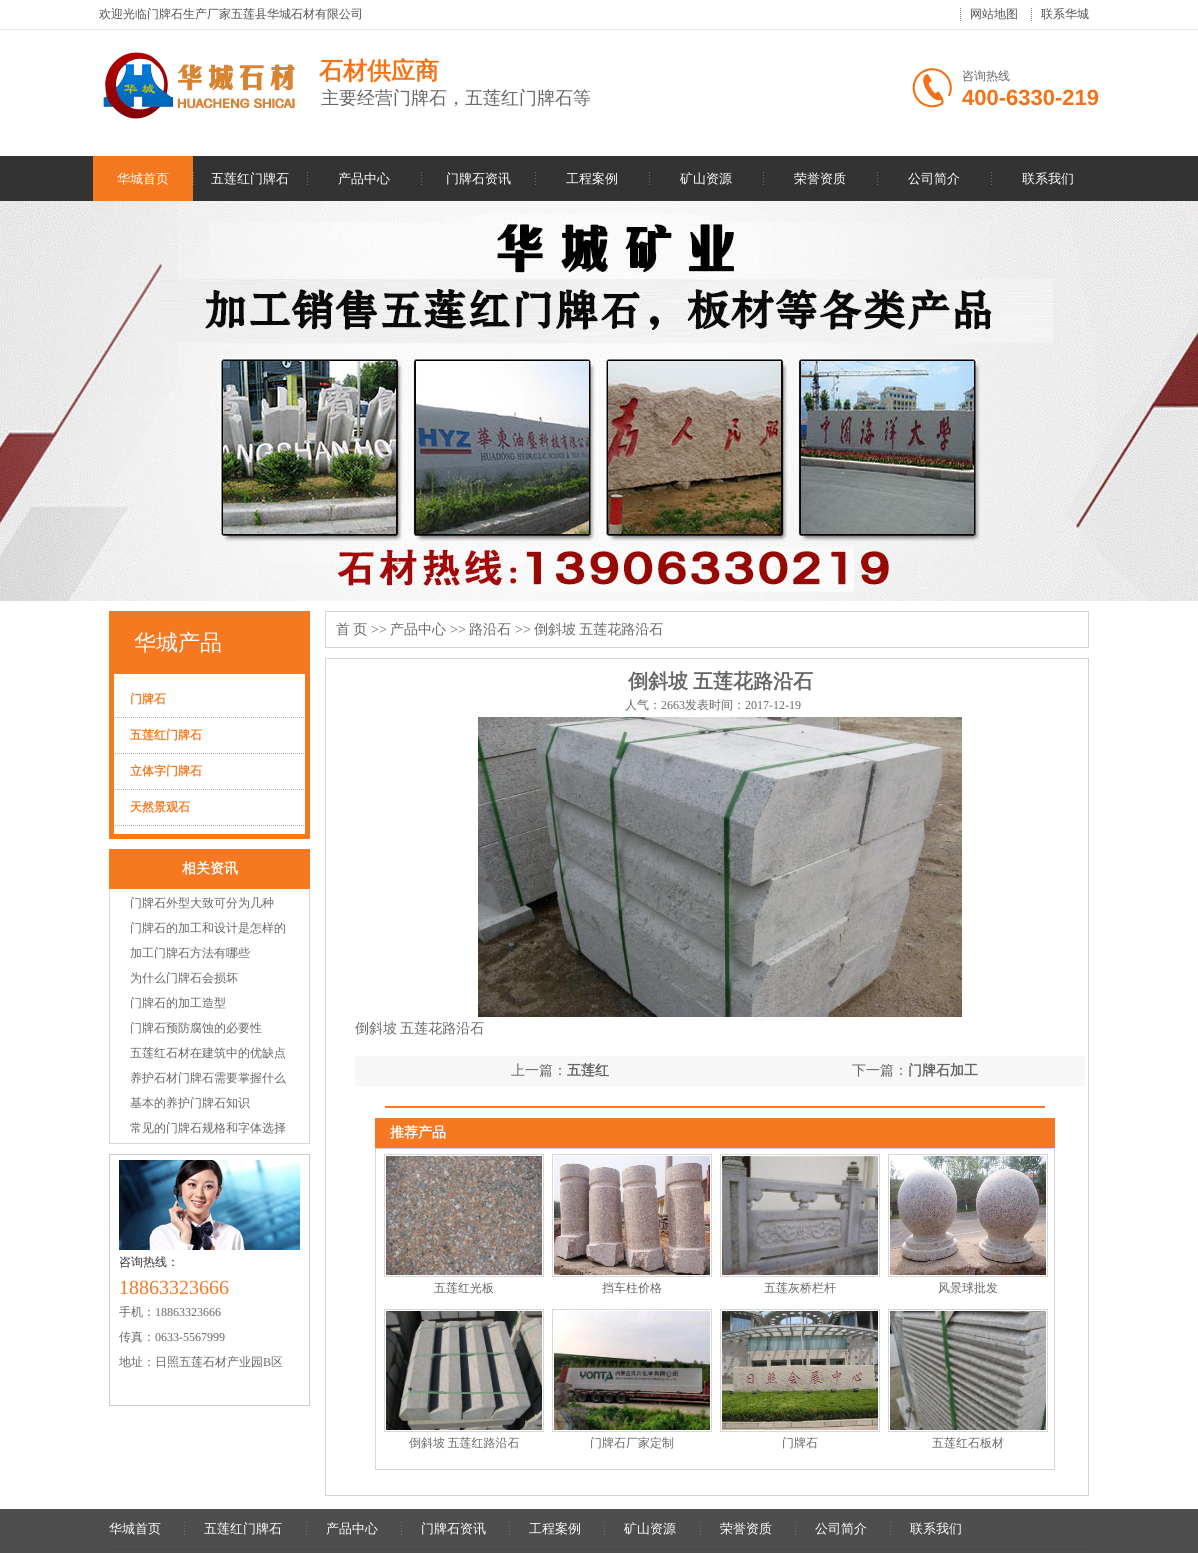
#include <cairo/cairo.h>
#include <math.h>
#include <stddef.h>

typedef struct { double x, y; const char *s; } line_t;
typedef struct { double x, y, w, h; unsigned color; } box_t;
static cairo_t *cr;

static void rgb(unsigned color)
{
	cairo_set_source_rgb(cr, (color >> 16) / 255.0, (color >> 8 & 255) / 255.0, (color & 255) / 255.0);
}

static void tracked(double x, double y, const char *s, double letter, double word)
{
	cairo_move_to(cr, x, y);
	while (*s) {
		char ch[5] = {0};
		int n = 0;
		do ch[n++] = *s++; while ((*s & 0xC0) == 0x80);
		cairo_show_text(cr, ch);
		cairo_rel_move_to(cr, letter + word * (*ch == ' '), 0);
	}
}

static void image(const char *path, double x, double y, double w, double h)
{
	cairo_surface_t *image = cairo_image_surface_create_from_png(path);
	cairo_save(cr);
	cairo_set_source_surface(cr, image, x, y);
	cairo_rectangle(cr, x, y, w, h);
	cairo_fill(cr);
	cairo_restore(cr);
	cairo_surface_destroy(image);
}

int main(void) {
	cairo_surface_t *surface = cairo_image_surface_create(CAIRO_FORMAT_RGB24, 1198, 1553);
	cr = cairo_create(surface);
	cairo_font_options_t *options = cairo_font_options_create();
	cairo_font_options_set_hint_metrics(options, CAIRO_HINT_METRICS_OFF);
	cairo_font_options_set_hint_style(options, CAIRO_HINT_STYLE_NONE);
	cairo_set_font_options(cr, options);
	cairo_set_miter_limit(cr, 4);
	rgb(0xffffff);
	cairo_paint(cr);
	rgb(0xe5e5e5);
	cairo_rectangle(cr, 0, 29, 1198, 1);
	cairo_fill(cr);
	image("img/1.png", 960, 8, 1, 13);
	image("img/1.png", 1031, 8, 1, 13);
	image("img/2.png", 103, 52, 192, 67);
	image("img/3.png", 912, 68, 40, 40);
	rgb(0x333333);
	cairo_rectangle(cr, 0, 156, 1198, 45);
	cairo_fill(cr);
	rgb(0xf57720);
	cairo_rectangle(cr, 93, 156, 100, 45);
	cairo_fill(cr);
	image("img/4.png", 193, 172, 1, 13);
	image("img/4.png", 307, 172, 1, 13);
	image("img/4.png", 421, 172, 1, 13);
	image("img/4.png", 535, 172, 1, 13);
	image("img/4.png", 649, 172, 1, 13);
	image("img/4.png", 763, 172, 1, 13);
	image("img/4.png", 877, 172, 1, 13);
	image("img/4.png", 991, 172, 1, 13);
	image("img/5.png", 0, 201, 1198, 400);
	{
		static const box_t items[] = {
			{109, 611, 201, 63, 0xf67821},
			{305, 674, 5, 165, 0xf67821},
			{109, 834, 201, 5, 0xf67821},
			{109, 674, 5, 165, 0xf67821},
		};
		for (size_t i = 0; i < sizeof items / sizeof *items; i++) {
			rgb(items[i].color);
			cairo_rectangle(cr, items[i].x, items[i].y, items[i].w, items[i].h);
			cairo_fill(cr);
		}
	}
	cairo_new_path(cr);
	cairo_move_to(cr, 115, 717.5);
	cairo_line_to(cr, 304, 717.5);
	rgb(0xb4b1b1);
	cairo_set_line_width(cr, 1);
	cairo_set_dash(cr, (double[]){1, 1}, 2, 0);
	cairo_stroke(cr);
	cairo_new_path(cr);
	cairo_move_to(cr, 115, 753.5);
	cairo_line_to(cr, 304, 753.5);
	cairo_stroke(cr);
	cairo_new_path(cr);
	cairo_move_to(cr, 115, 789.5);
	cairo_line_to(cr, 304, 789.5);
	cairo_stroke(cr);
	cairo_new_path(cr);
	cairo_move_to(cr, 115, 825.5);
	cairo_line_to(cr, 304, 825.5);
	cairo_stroke(cr);
	{
		static const box_t items[] = {
			{109, 849, 201, 40, 0xf67821},
			{309, 889, 1, 255, 0xd7d7d7},
			{109, 1143, 201, 1, 0xd7d7d7},
			{109, 889, 1, 255, 0xd7d7d7},
		};
		for (size_t i = 0; i < sizeof items / sizeof *items; i++) {
			rgb(items[i].color);
			cairo_rectangle(cr, items[i].x, items[i].y, items[i].w, items[i].h);
			cairo_fill(cr);
		}
	}
	cairo_rectangle(cr, 109.5, 1154.5, 200, 251);
	rgb(0xcccccc);
	cairo_set_dash(cr, NULL, 0, 0);
	cairo_stroke(cr);
	image("img/6.png", 119, 1160, 181, 90);
	cairo_rectangle(cr, 325.5, 611.5, 763, 36);
	rgb(0xd5d5d5);
	cairo_stroke(cr);
	cairo_rectangle(cr, 325.5, 658.5, 763, 837);
	cairo_stroke(cr);
	image("img/7.png", 478, 717, 484, 300);
	{
		static const box_t items[] = {
			{355, 1056, 730, 30, 0xf7f7f7},
			{385, 1106, 660, 2, 0xf67821},
			{375, 1118, 680, 30, 0xf67821},
		};
		for (size_t i = 0; i < sizeof items / sizeof *items; i++) {
			rgb(items[i].color);
			cairo_rectangle(cr, items[i].x, items[i].y, items[i].w, items[i].h);
			cairo_fill(cr);
		}
	}
	cairo_rectangle(cr, 375.5, 1148.5, 679, 321);
	rgb(0xd7d7d7);
	cairo_stroke(cr);
	cairo_rectangle(cr, 384.5, 1154.5, 159, 122);
	cairo_stroke(cr);
	image("img/8.png", 386, 1156, 156, 119);
	cairo_rectangle(cr, 552.5, 1154.5, 159, 122);
	cairo_stroke(cr);
	image("img/9.png", 554, 1156, 156, 119);
	cairo_rectangle(cr, 720.5, 1154.5, 159, 122);
	cairo_stroke(cr);
	image("img/10.png", 722, 1156, 156, 119);
	cairo_rectangle(cr, 888.5, 1154.5, 159, 122);
	cairo_stroke(cr);
	image("img/11.png", 890, 1156, 156, 119);
	cairo_rectangle(cr, 384.5, 1309.5, 159, 122);
	cairo_stroke(cr);
	image("img/12.png", 386, 1311, 156, 119);
	cairo_rectangle(cr, 552.5, 1309.5, 159, 122);
	cairo_stroke(cr);
	image("img/13.png", 554, 1311, 156, 119);
	cairo_rectangle(cr, 720.5, 1309.5, 159, 122);
	cairo_stroke(cr);
	image("img/14.png", 722, 1311, 156, 119);
	cairo_rectangle(cr, 888.5, 1309.5, 159, 122);
	cairo_stroke(cr);
	image("img/15.png", 890, 1311, 156, 119);
	rgb(0x4e4e4e);
	cairo_rectangle(cr, 0, 1509, 1198, 44);
	cairo_fill(cr);
	image("img/16.png", 184, 1522, 1, 13);
	image("img/16.png", 306, 1522, 1, 13);
	image("img/16.png", 401, 1522, 1, 13);
	image("img/16.png", 509, 1522, 1, 13);
	image("img/16.png", 604, 1522, 1, 13);
	image("img/16.png", 700, 1522, 1, 13);
	image("img/16.png", 795, 1522, 1, 13);
	image("img/16.png", 890, 1522, 1, 13);
	rgb(0x484848);
	cairo_rectangle(cr, 109, 1549, 980, 1);
	cairo_fill(cr);
	cairo_select_font_face(cr, "WenQuanYi Zen Hei Medium", CAIRO_FONT_SLANT_NORMAL, CAIRO_FONT_WEIGHT_NORMAL);
	cairo_set_font_size(cr, 12);
	rgb(0x535353);
	{
		static const line_t items[] = {
			{99, 18, "欢迎光临门牌石生产厂家五莲县华城石材有限公司"},
			{970, 18, "网站地图"},
			{1041, 18, "联系华城"},
		};
		for (size_t i = 0; i < sizeof items / sizeof *items; i++) {
			cairo_move_to(cr, items[i].x, items[i].y);
			cairo_show_text(cr, items[i].s);
		}
	}
	cairo_select_font_face(cr, "WenQuanYi Zen Hei", CAIRO_FONT_SLANT_NORMAL, CAIRO_FONT_WEIGHT_BOLD);
	cairo_set_font_size(cr, 24);
	rgb(0xf67114);
	cairo_move_to(cr, 319, 79);
	cairo_show_text(cr, "石材供应商");
	cairo_select_font_face(cr, "WenQuanYi Zen Hei Medium", CAIRO_FONT_SLANT_NORMAL, CAIRO_FONT_WEIGHT_NORMAL);
	cairo_set_font_size(cr, 18);
	rgb(0x666666);
	cairo_move_to(cr, 321, 104);
	cairo_show_text(cr, "主要经营门牌石，五莲红门牌石等");
	cairo_set_font_size(cr, 12);
	cairo_move_to(cr, 962, 80);
	cairo_show_text(cr, "咨询热线");
	cairo_select_font_face(cr, "Liberation Sans", CAIRO_FONT_SLANT_NORMAL, CAIRO_FONT_WEIGHT_BOLD);
	cairo_set_font_size(cr, 22);
	rgb(0xf67114);
	cairo_move_to(cr, 962, 105);
	cairo_show_text(cr, "400-6330-219");
	cairo_select_font_face(cr, "WenQuanYi Zen Hei Medium", CAIRO_FONT_SLANT_NORMAL, CAIRO_FONT_WEIGHT_NORMAL);
	cairo_set_font_size(cr, 13);
	rgb(0xffffff);
	{
		static const line_t items[] = {
			{117, 183, "华城首页"},
			{211, 183, "五莲红门牌石"},
			{338, 183, "产品中心"},
			{446, 183, "门牌石资讯"},
			{566, 183, "工程案例"},
			{680, 183, "矿山资源"},
			{794, 183, "荣誉资质"},
			{908, 183, "公司简介"},
			{1022, 183, "联系我们"},
		};
		for (size_t i = 0; i < sizeof items / sizeof *items; i++) {
			cairo_move_to(cr, items[i].x, items[i].y);
			cairo_show_text(cr, items[i].s);
		}
	}
	cairo_set_font_size(cr, 22);
	cairo_move_to(cr, 134, 650);
	cairo_show_text(cr, "华城产品");
	cairo_select_font_face(cr, "WenQuanYi Zen Hei", CAIRO_FONT_SLANT_NORMAL, CAIRO_FONT_WEIGHT_BOLD);
	cairo_set_font_size(cr, 12);
	rgb(0xf67821);
	{
		static const line_t items[] = {
			{130, 703, "门牌石"},
			{130, 739, "五莲红门牌石"},
			{130, 775, "立体字门牌石"},
			{130, 811, "天然景观石"},
		};
		for (size_t i = 0; i < sizeof items / sizeof *items; i++) {
			cairo_move_to(cr, items[i].x, items[i].y);
			cairo_show_text(cr, items[i].s);
		}
	}
	cairo_set_font_size(cr, 14);
	rgb(0xffffff);
	cairo_move_to(cr, 182, 873);
	cairo_show_text(cr, "相关资讯");
	cairo_select_font_face(cr, "WenQuanYi Zen Hei Medium", CAIRO_FONT_SLANT_NORMAL, CAIRO_FONT_WEIGHT_NORMAL);
	cairo_set_font_size(cr, 12);
	rgb(0x666666);
	{
		static const line_t items[] = {
			{130, 907, "门牌石外型大致可分为几种"},
			{130, 932, "门牌石的加工和设计是怎样的"},
			{130, 957, "加工门牌石方法有哪些"},
			{130, 982, "为什么门牌石会损坏"},
			{130, 1007, "门牌石的加工造型"},
			{130, 1032, "门牌石预防腐蚀的必要性"},
			{130, 1057, "五莲红石材在建筑中的优缺点"},
			{130, 1082, "养护石材门牌石需要掌握什么"},
			{130, 1107, "基本的养护门牌石知识"},
			{130, 1132, "常见的门牌石规格和字体选择"},
		};
		for (size_t i = 0; i < sizeof items / sizeof *items; i++) {
			cairo_move_to(cr, items[i].x, items[i].y);
			cairo_show_text(cr, items[i].s);
		}
	}
	rgb(0x333333);
	cairo_move_to(cr, 119, 1266);
	cairo_show_text(cr, "咨询热线：");
	cairo_select_font_face(cr, "Liberation Serif", CAIRO_FONT_SLANT_NORMAL, CAIRO_FONT_WEIGHT_NORMAL);
	cairo_set_font_size(cr, 20);
	rgb(0xf67821);
	cairo_move_to(cr, 119, 1294);
	cairo_show_text(cr, "18863323666");
	cairo_select_font_face(cr, "WenQuanYi Zen Hei Medium", CAIRO_FONT_SLANT_NORMAL, CAIRO_FONT_WEIGHT_NORMAL);
	cairo_set_font_size(cr, 12);
	rgb(0x666666);
	cairo_move_to(cr, 119, 1316);
	cairo_show_text(cr, "手机：");
	cairo_select_font_face(cr, "Liberation Serif", CAIRO_FONT_SLANT_NORMAL, CAIRO_FONT_WEIGHT_NORMAL);
	cairo_move_to(cr, 155, 1316);
	cairo_show_text(cr, "18863323666");
	cairo_select_font_face(cr, "WenQuanYi Zen Hei Medium", CAIRO_FONT_SLANT_NORMAL, CAIRO_FONT_WEIGHT_NORMAL);
	cairo_move_to(cr, 119, 1341);
	cairo_show_text(cr, "传真：");
	cairo_select_font_face(cr, "Liberation Serif", CAIRO_FONT_SLANT_NORMAL, CAIRO_FONT_WEIGHT_NORMAL);
	cairo_move_to(cr, 155, 1341);
	cairo_show_text(cr, "0633-5567999");
	cairo_select_font_face(cr, "WenQuanYi Zen Hei Medium", CAIRO_FONT_SLANT_NORMAL, CAIRO_FONT_WEIGHT_NORMAL);
	cairo_move_to(cr, 119, 1366);
	cairo_show_text(cr, "地址：日照五莲石材产业园");
	cairo_select_font_face(cr, "Liberation Serif", CAIRO_FONT_SLANT_NORMAL, CAIRO_FONT_WEIGHT_NORMAL);
	cairo_move_to(cr, 263, 1366);
	cairo_show_text(cr, "B");
	cairo_select_font_face(cr, "WenQuanYi Zen Hei Medium", CAIRO_FONT_SLANT_NORMAL, CAIRO_FONT_WEIGHT_NORMAL);
	cairo_move_to(cr, 271, 1366);
	cairo_show_text(cr, "区");
	cairo_set_font_size(cr, 14);
	tracked(336, 634, "首 页", 0, -1);
	cairo_select_font_face(cr, "Liberation Serif", CAIRO_FONT_SLANT_NORMAL, CAIRO_FONT_WEIGHT_NORMAL);
	cairo_move_to(cr, 371, 634);
	cairo_show_text(cr, ">>");
	cairo_select_font_face(cr, "WenQuanYi Zen Hei Medium", CAIRO_FONT_SLANT_NORMAL, CAIRO_FONT_WEIGHT_NORMAL);
	cairo_move_to(cr, 390, 634);
	cairo_show_text(cr, "产品中心");
	cairo_select_font_face(cr, "Liberation Serif", CAIRO_FONT_SLANT_NORMAL, CAIRO_FONT_WEIGHT_NORMAL);
	cairo_move_to(cr, 450, 634);
	cairo_show_text(cr, ">>");
	cairo_select_font_face(cr, "WenQuanYi Zen Hei Medium", CAIRO_FONT_SLANT_NORMAL, CAIRO_FONT_WEIGHT_NORMAL);
	cairo_move_to(cr, 469, 634);
	cairo_show_text(cr, "路沿石");
	cairo_select_font_face(cr, "Liberation Serif", CAIRO_FONT_SLANT_NORMAL, CAIRO_FONT_WEIGHT_NORMAL);
	cairo_move_to(cr, 515, 634);
	cairo_show_text(cr, ">>");
	cairo_select_font_face(cr, "WenQuanYi Zen Hei Medium", CAIRO_FONT_SLANT_NORMAL, CAIRO_FONT_WEIGHT_NORMAL);
	tracked(534, 634, "倒斜坡 五莲花路沿石", 0, -1);
	cairo_select_font_face(cr, "WenQuanYi Zen Hei", CAIRO_FONT_SLANT_NORMAL, CAIRO_FONT_WEIGHT_BOLD);
	cairo_set_font_size(cr, 20);
	tracked(628, 688, "倒斜坡 五莲花路沿石", 0, -1);
	cairo_select_font_face(cr, "WenQuanYi Zen Hei Medium", CAIRO_FONT_SLANT_NORMAL, CAIRO_FONT_WEIGHT_NORMAL);
	cairo_set_font_size(cr, 12);
	cairo_move_to(cr, 625, 709);
	cairo_show_text(cr, "人气：");
	cairo_select_font_face(cr, "Liberation Serif", CAIRO_FONT_SLANT_NORMAL, CAIRO_FONT_WEIGHT_NORMAL);
	cairo_move_to(cr, 661, 709);
	cairo_show_text(cr, "2663");
	cairo_select_font_face(cr, "WenQuanYi Zen Hei Medium", CAIRO_FONT_SLANT_NORMAL, CAIRO_FONT_WEIGHT_NORMAL);
	cairo_move_to(cr, 685, 709);
	cairo_show_text(cr, "发表时间：");
	cairo_select_font_face(cr, "Liberation Serif", CAIRO_FONT_SLANT_NORMAL, CAIRO_FONT_WEIGHT_NORMAL);
	cairo_move_to(cr, 745, 709);
	cairo_show_text(cr, "2017-12-19");
	cairo_select_font_face(cr, "WenQuanYi Zen Hei Medium", CAIRO_FONT_SLANT_NORMAL, CAIRO_FONT_WEIGHT_NORMAL);
	cairo_set_font_size(cr, 14);
	tracked(355, 1033, "倒斜坡 五莲花路沿石", 0, -1);
	cairo_move_to(cr, 511, 1075);
	cairo_show_text(cr, "上一篇：");
	cairo_select_font_face(cr, "WenQuanYi Zen Hei", CAIRO_FONT_SLANT_NORMAL, CAIRO_FONT_WEIGHT_BOLD);
	cairo_move_to(cr, 567, 1075);
	cairo_show_text(cr, "五莲红");
	cairo_select_font_face(cr, "WenQuanYi Zen Hei Medium", CAIRO_FONT_SLANT_NORMAL, CAIRO_FONT_WEIGHT_NORMAL);
	cairo_move_to(cr, 852, 1075);
	cairo_show_text(cr, "下一篇：");
	cairo_select_font_face(cr, "WenQuanYi Zen Hei", CAIRO_FONT_SLANT_NORMAL, CAIRO_FONT_WEIGHT_BOLD);
	cairo_move_to(cr, 908, 1075);
	cairo_show_text(cr, "门牌石加工");
	rgb(0xffffff);
	cairo_move_to(cr, 390, 1137);
	cairo_show_text(cr, "推荐产品");
	cairo_select_font_face(cr, "WenQuanYi Zen Hei Medium", CAIRO_FONT_SLANT_NORMAL, CAIRO_FONT_WEIGHT_NORMAL);
	cairo_set_font_size(cr, 12);
	rgb(0x666666);
	{
		static const line_t items[] = {
			{434, 1292, "五莲红光板"},
			{602, 1292, "挡车柱价格"},
			{764, 1292, "五莲灰桥栏杆"},
			{938, 1292, "风景球批发"},
		};
		for (size_t i = 0; i < sizeof items / sizeof *items; i++) {
			cairo_move_to(cr, items[i].x, items[i].y);
			cairo_show_text(cr, items[i].s);
		}
	}
	tracked(409, 1447, "倒斜坡 五莲红路沿石", 0, -1);
	{
		static const line_t items[] = {
			{590, 1447, "门牌石厂家定制"},
			{782, 1447, "门牌石"},
			{932, 1447, "五莲红石板材"},
		};
		for (size_t i = 0; i < sizeof items / sizeof *items; i++) {
			cairo_move_to(cr, items[i].x, items[i].y);
			cairo_show_text(cr, items[i].s);
		}
	}
	cairo_set_font_size(cr, 13);
	rgb(0xffffff);
	{
		static const line_t items[] = {
			{109, 1533, "华城首页"},
			{204, 1533, "五莲红门牌石"},
			{326, 1533, "产品中心"},
			{421, 1533, "门牌石资讯"},
			{529, 1533, "工程案例"},
			{624, 1533, "矿山资源"},
			{720, 1533, "荣誉资质"},
			{815, 1533, "公司简介"},
			{910, 1533, "联系我们"},
		};
		for (size_t i = 0; i < sizeof items / sizeof *items; i++) {
			cairo_move_to(cr, items[i].x, items[i].y);
			cairo_show_text(cr, items[i].s);
		}
	}
	cairo_surface_write_to_png(surface, "page.png");
	cairo_font_options_destroy(options);
	cairo_destroy(cr);
	cairo_surface_destroy(surface);
	return 0;
}
